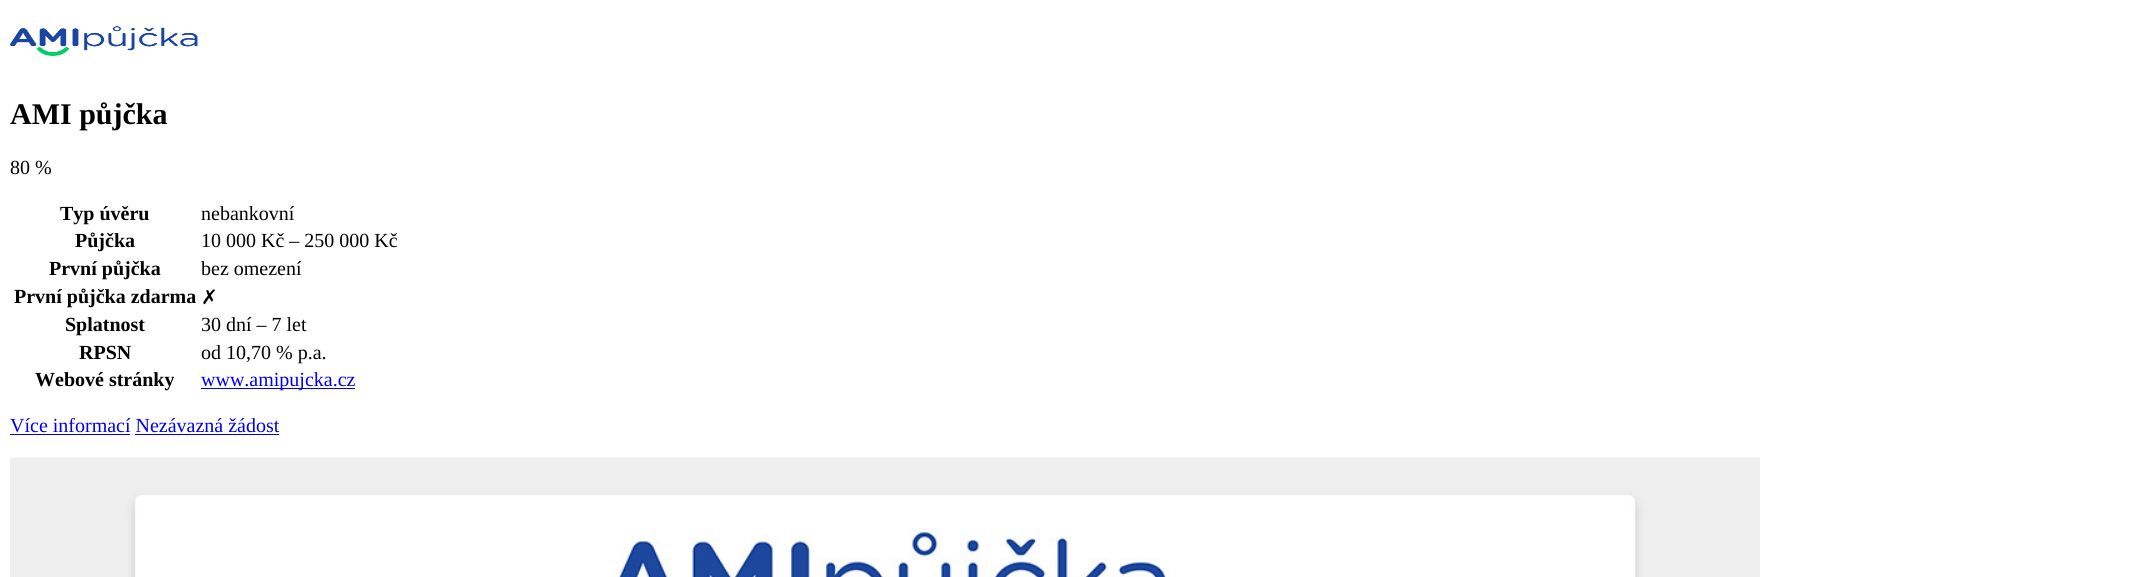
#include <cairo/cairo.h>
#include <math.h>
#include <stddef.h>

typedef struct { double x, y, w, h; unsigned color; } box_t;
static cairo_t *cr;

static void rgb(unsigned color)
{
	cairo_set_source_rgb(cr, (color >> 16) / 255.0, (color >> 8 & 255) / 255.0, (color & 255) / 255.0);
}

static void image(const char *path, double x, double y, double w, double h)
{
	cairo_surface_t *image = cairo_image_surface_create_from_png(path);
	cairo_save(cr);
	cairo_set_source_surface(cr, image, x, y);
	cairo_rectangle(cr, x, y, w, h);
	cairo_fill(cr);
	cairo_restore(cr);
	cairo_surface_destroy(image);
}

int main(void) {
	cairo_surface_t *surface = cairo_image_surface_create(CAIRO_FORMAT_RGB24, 2156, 577);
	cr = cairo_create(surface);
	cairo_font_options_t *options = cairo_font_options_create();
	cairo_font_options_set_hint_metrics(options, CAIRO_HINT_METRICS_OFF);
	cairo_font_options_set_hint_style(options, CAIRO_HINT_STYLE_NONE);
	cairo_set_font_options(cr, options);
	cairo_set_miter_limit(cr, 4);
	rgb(0xffffff);
	cairo_paint(cr);
	image("img/1.png", 10, 26, 188, 30);
	{
		static const box_t items[] = {
			{201, 388, 154, 1, 0x0000ee},
			{10, 434, 120, 1, 0x0000ee},
			{135, 434, 144, 1, 0x0000ee},
		};
		for (size_t i = 0; i < sizeof items / sizeof *items; i++) {
			rgb(items[i].color);
			cairo_rectangle(cr, items[i].x, items[i].y, items[i].w, items[i].h);
			cairo_fill(cr);
		}
	}
	image("img/2.png", 10, 457, 1750, 120);
	cairo_select_font_face(cr, "Liberation Serif", CAIRO_FONT_SLANT_NORMAL, CAIRO_FONT_WEIGHT_BOLD);
	cairo_set_font_size(cr, 30);
	rgb(0x000000);
	cairo_move_to(cr, 10, 124);
	cairo_show_text(cr, "AMI půjčka");
	cairo_select_font_face(cr, "Liberation Serif", CAIRO_FONT_SLANT_NORMAL, CAIRO_FONT_WEIGHT_NORMAL);
	cairo_set_font_size(cr, 20);
	cairo_move_to(cr, 10, 174);
	cairo_show_text(cr, "80 %");
	cairo_select_font_face(cr, "Liberation Serif", CAIRO_FONT_SLANT_NORMAL, CAIRO_FONT_WEIGHT_BOLD);
	cairo_move_to(cr, 60, 220);
	cairo_show_text(cr, "Typ úvěru");
	cairo_select_font_face(cr, "Liberation Serif", CAIRO_FONT_SLANT_NORMAL, CAIRO_FONT_WEIGHT_NORMAL);
	cairo_move_to(cr, 201, 220);
	cairo_show_text(cr, "nebankovní");
	cairo_select_font_face(cr, "Liberation Serif", CAIRO_FONT_SLANT_NORMAL, CAIRO_FONT_WEIGHT_BOLD);
	cairo_move_to(cr, 75, 247);
	cairo_show_text(cr, "Půjčka");
	cairo_select_font_face(cr, "Liberation Serif", CAIRO_FONT_SLANT_NORMAL, CAIRO_FONT_WEIGHT_NORMAL);
	cairo_move_to(cr, 201, 247);
	cairo_show_text(cr, "10 000 Kč – 250 000 Kč");
	cairo_select_font_face(cr, "Liberation Serif", CAIRO_FONT_SLANT_NORMAL, CAIRO_FONT_WEIGHT_BOLD);
	cairo_move_to(cr, 49, 275);
	cairo_show_text(cr, "První půjčka");
	cairo_select_font_face(cr, "Liberation Serif", CAIRO_FONT_SLANT_NORMAL, CAIRO_FONT_WEIGHT_NORMAL);
	cairo_move_to(cr, 201, 275);
	cairo_show_text(cr, "bez omezení");
	cairo_select_font_face(cr, "Liberation Serif", CAIRO_FONT_SLANT_NORMAL, CAIRO_FONT_WEIGHT_BOLD);
	cairo_move_to(cr, 14, 303);
	cairo_show_text(cr, "První půjčka zdarma");
	cairo_select_font_face(cr, "DejaVu Sans", CAIRO_FONT_SLANT_NORMAL, CAIRO_FONT_WEIGHT_NORMAL);
	cairo_move_to(cr, 201, 304);
	cairo_show_text(cr, "✗");
	cairo_select_font_face(cr, "Liberation Serif", CAIRO_FONT_SLANT_NORMAL, CAIRO_FONT_WEIGHT_BOLD);
	cairo_move_to(cr, 65, 331);
	cairo_show_text(cr, "Splatnost");
	cairo_select_font_face(cr, "Liberation Serif", CAIRO_FONT_SLANT_NORMAL, CAIRO_FONT_WEIGHT_NORMAL);
	cairo_move_to(cr, 201, 331);
	cairo_show_text(cr, "30 dní – 7 let");
	cairo_select_font_face(cr, "Liberation Serif", CAIRO_FONT_SLANT_NORMAL, CAIRO_FONT_WEIGHT_BOLD);
	cairo_move_to(cr, 79, 359);
	cairo_show_text(cr, "RPSN");
	cairo_select_font_face(cr, "Liberation Serif", CAIRO_FONT_SLANT_NORMAL, CAIRO_FONT_WEIGHT_NORMAL);
	cairo_move_to(cr, 201, 359);
	cairo_show_text(cr, "od 10,70 % p.a.");
	cairo_select_font_face(cr, "Liberation Serif", CAIRO_FONT_SLANT_NORMAL, CAIRO_FONT_WEIGHT_BOLD);
	cairo_move_to(cr, 35, 386);
	cairo_show_text(cr, "Webové stránky");
	cairo_select_font_face(cr, "Liberation Serif", CAIRO_FONT_SLANT_NORMAL, CAIRO_FONT_WEIGHT_NORMAL);
	rgb(0x0000ee);
	cairo_move_to(cr, 201, 386);
	cairo_show_text(cr, "www.amipujcka.cz");
	cairo_move_to(cr, 10, 432);
	cairo_show_text(cr, "Více informací Nezávazná žádost");
	cairo_surface_write_to_png(surface, "page.png");
	cairo_font_options_destroy(options);
	cairo_destroy(cr);
	cairo_surface_destroy(surface);
	return 0;
}
